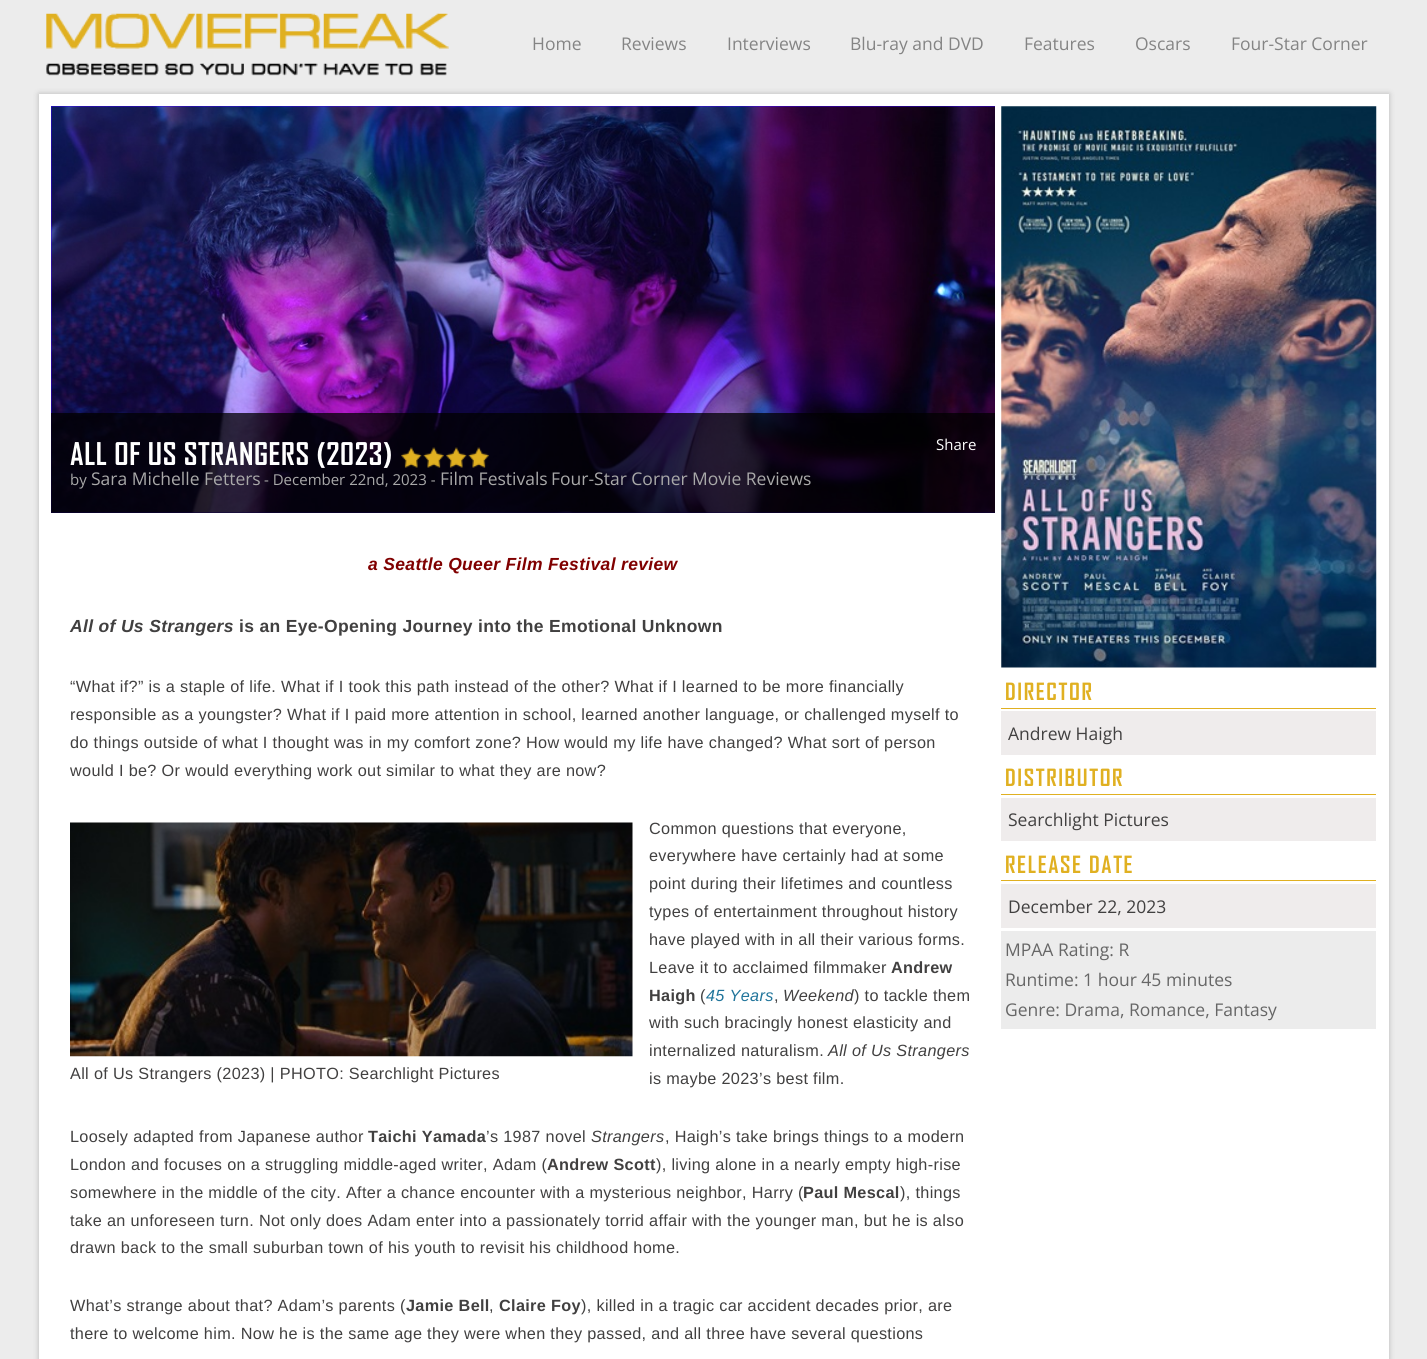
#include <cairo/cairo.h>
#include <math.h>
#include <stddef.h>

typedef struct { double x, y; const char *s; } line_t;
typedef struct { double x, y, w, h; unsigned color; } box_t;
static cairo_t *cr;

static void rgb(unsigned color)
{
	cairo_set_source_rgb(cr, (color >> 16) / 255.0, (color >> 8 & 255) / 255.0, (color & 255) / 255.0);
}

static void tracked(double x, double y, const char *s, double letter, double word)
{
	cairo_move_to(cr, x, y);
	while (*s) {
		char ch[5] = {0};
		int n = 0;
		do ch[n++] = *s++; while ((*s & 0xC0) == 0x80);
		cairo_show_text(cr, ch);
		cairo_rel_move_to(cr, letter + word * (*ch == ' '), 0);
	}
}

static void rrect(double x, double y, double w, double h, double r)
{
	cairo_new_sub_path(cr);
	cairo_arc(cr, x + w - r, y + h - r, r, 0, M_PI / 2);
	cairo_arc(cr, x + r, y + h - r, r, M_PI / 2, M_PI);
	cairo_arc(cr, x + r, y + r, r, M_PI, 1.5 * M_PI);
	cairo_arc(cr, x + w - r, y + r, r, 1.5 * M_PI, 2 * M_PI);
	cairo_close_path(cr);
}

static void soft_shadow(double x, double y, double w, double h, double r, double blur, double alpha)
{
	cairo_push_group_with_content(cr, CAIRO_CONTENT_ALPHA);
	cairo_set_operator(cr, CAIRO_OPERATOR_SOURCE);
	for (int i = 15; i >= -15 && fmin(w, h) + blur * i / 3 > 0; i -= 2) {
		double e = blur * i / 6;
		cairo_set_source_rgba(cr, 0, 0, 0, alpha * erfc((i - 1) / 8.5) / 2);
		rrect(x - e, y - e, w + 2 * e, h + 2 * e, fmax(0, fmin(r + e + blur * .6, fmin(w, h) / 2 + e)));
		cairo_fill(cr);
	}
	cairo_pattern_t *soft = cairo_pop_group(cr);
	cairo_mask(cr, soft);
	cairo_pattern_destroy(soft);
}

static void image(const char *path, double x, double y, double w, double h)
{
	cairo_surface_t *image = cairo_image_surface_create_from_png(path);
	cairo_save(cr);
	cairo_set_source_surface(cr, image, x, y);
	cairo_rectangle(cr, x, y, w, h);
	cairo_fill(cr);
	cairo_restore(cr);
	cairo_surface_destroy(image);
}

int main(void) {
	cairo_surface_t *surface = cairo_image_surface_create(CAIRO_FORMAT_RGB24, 1427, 1359);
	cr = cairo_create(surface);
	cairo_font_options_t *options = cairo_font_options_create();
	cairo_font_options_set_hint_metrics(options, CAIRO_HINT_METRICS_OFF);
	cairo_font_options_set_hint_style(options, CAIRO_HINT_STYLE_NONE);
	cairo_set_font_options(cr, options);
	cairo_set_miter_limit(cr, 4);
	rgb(0xececec);
	cairo_paint(cr);
	image("img/1.png", 46, 13, 403, 63);
	rgb(0x323232);
	soft_shadow(39, 94, 1350, 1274, 0, 3, 0.28);
	rgb(0xffffff);
	cairo_rectangle(cr, 39, 94, 1350, 1265);
	cairo_fill(cr);
	rgb(0x3300ff);
	cairo_rectangle(cr, 51, 106, 944, 407);
	cairo_fill(cr);
	image("img/2.png", 51, 106, 944, 407);
	cairo_set_source_rgba(cr, 0, 0, 0, 0.75);
	cairo_rectangle(cr, 51, 413, 944, 100);
	cairo_fill(cr);
	image("img/3.png", 401, 447, 21, 21);
	image("img/4.png", 423, 447, 21, 21);
	image("img/5.png", 446, 447, 21, 21);
	image("img/6.png", 468, 447, 21, 21);
	image("img/7.png", 70, 822, 563, 235);
	image("img/8.png", 1001, 106, 376, 562);
	{
		static const box_t items[] = {
			{1001, 708, 375, 1, 0xe0b021},
			{1001, 711, 375, 44, 0xefecec},
			{1001, 794, 375, 1, 0xe0b021},
			{1001, 798, 375, 43, 0xefecec},
			{1001, 880, 375, 1, 0xe0b021},
			{1001, 884, 375, 44, 0xefecec},
			{1001, 931, 375, 98, 0xececec},
		};
		for (size_t i = 0; i < sizeof items / sizeof *items; i++) {
			rgb(items[i].color);
			cairo_rectangle(cr, items[i].x, items[i].y, items[i].w, items[i].h);
			cairo_fill(cr);
		}
	}
	cairo_select_font_face(cr, "Open Sans", CAIRO_FONT_SLANT_NORMAL, CAIRO_FONT_WEIGHT_NORMAL);
	cairo_set_font_size(cr, 17.5);
	rgb(0x848484);
	{
		static const line_t items[] = {
			{532, 50, "Home"},
			{621, 50, "Reviews"},
			{727, 50, "Interviews"},
			{850, 50, "Blu-ray and DVD"},
			{1024, 50, "Features"},
			{1135, 50, "Oscars"},
			{1231, 50, "Four-Star Corner"},
		};
		for (size_t i = 0; i < sizeof items / sizeof *items; i++) {
			cairo_move_to(cr, items[i].x, items[i].y);
			cairo_show_text(cr, items[i].s);
		}
	}
	cairo_select_font_face(cr, "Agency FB", CAIRO_FONT_SLANT_NORMAL, CAIRO_FONT_WEIGHT_BOLD);
	cairo_set_font_size(cr, 30);
	rgb(0xffffff);
	tracked(70, 465, "ALL OF US STRANGERS (2023)", 0.6, 0);
	cairo_select_font_face(cr, "Open Sans", CAIRO_FONT_SLANT_NORMAL, CAIRO_FONT_WEIGHT_NORMAL);
	cairo_set_font_size(cr, 15);
	cairo_move_to(cr, 936, 450);
	cairo_show_text(cr, "Share");
	rgb(0xa9a9a9);
	cairo_move_to(cr, 70, 485);
	cairo_show_text(cr, "by");
	cairo_set_font_size(cr, 17.5);
	cairo_move_to(cr, 91, 485);
	cairo_show_text(cr, "Sara Michelle Fetters");
	cairo_set_font_size(cr, 15);
	cairo_move_to(cr, 264, 485);
	cairo_show_text(cr, "- December 22nd, 2023 -");
	cairo_set_font_size(cr, 17.5);
	{
		static const line_t items[] = {
			{440, 485, "Film Festivals"},
			{551, 485, "Four-Star Corner"},
			{692, 485, "Movie Reviews"},
		};
		for (size_t i = 0; i < sizeof items / sizeof *items; i++) {
			cairo_move_to(cr, items[i].x, items[i].y);
			cairo_show_text(cr, items[i].s);
		}
	}
	cairo_select_font_face(cr, "Liberation Sans", CAIRO_FONT_SLANT_ITALIC, CAIRO_FONT_WEIGHT_BOLD);
	rgb(0x800000);
	tracked(368, 570, "a Seattle Queer Film Festival review", 0.33, 0);
	rgb(0x414040);
	tracked(70, 632, "All of Us Strangers", 0.33, 0);
	cairo_select_font_face(cr, "Liberation Sans", CAIRO_FONT_SLANT_NORMAL, CAIRO_FONT_WEIGHT_BOLD);
	tracked(239, 632, "is an Eye-Opening Journey into the Emotional Unknown", 0.33, 0);
	cairo_select_font_face(cr, "Liberation Sans", CAIRO_FONT_SLANT_NORMAL, CAIRO_FONT_WEIGHT_NORMAL);
	cairo_set_font_size(cr, 16.25);
	{
		static const line_t items[] = {
			{70, 692, "“What if?” is a staple of life. What if I took this path instead of the other? What if I learned to be more financially"},
			{70, 720, "responsible as a youngster? What if I paid more attention in school, learned another language, or challenged myself to"},
			{70, 748, "do things outside of what I thought was in my comfort zone? How would my life have changed? What sort of person"},
			{70, 776, "would I be? Or would everything work out similar to what they are now?"},
			{70, 1079, "All of Us Strangers (2023) | PHOTO: Searchlight Pictures"},
			{649, 834, "Common questions that everyone,"},
			{649, 861, "everywhere have certainly had at some"},
			{649, 889, "point during their lifetimes and countless"},
			{649, 917, "types of entertainment throughout history"},
			{649, 945, "have played with in all their various forms."},
			{649, 973, "Leave it to acclaimed filmmaker"},
		};
		for (size_t i = 0; i < sizeof items / sizeof *items; i++) {
			tracked(items[i].x, items[i].y, items[i].s, 0.33, 0);
		}
	}
	cairo_select_font_face(cr, "Liberation Sans", CAIRO_FONT_SLANT_NORMAL, CAIRO_FONT_WEIGHT_BOLD);
	tracked(891, 973, "Andrew", 0.33, 0);
	tracked(649, 1001, "Haigh", 0.33, 0);
	cairo_select_font_face(cr, "Liberation Sans", CAIRO_FONT_SLANT_NORMAL, CAIRO_FONT_WEIGHT_NORMAL);
	tracked(700, 1001, "(", 0.33, 0);
	cairo_select_font_face(cr, "Liberation Sans", CAIRO_FONT_SLANT_ITALIC, CAIRO_FONT_WEIGHT_NORMAL);
	rgb(0x21759b);
	tracked(706, 1001, "45 Years", 0.33, 0);
	cairo_select_font_face(cr, "Liberation Sans", CAIRO_FONT_SLANT_NORMAL, CAIRO_FONT_WEIGHT_NORMAL);
	rgb(0x414040);
	tracked(774, 1001, ",", 0.33, 0);
	cairo_select_font_face(cr, "Liberation Sans", CAIRO_FONT_SLANT_ITALIC, CAIRO_FONT_WEIGHT_NORMAL);
	tracked(783, 1001, "Weekend", 0.33, 0);
	cairo_select_font_face(cr, "Liberation Sans", CAIRO_FONT_SLANT_NORMAL, CAIRO_FONT_WEIGHT_NORMAL);
	{
		static const line_t items[] = {
			{854, 1001, ") to tackle them"},
			{649, 1028, "with such bracingly honest elasticity and"},
			{649, 1056, "internalized naturalism."},
		};
		for (size_t i = 0; i < sizeof items / sizeof *items; i++) {
			tracked(items[i].x, items[i].y, items[i].s, 0.33, 0);
		}
	}
	cairo_select_font_face(cr, "Liberation Sans", CAIRO_FONT_SLANT_ITALIC, CAIRO_FONT_WEIGHT_NORMAL);
	tracked(828, 1056, "All of Us Strangers", 0.33, 0);
	cairo_select_font_face(cr, "Liberation Sans", CAIRO_FONT_SLANT_NORMAL, CAIRO_FONT_WEIGHT_NORMAL);
	tracked(649, 1084, "is maybe 2023’s best film.", 0.33, 0);
	tracked(70, 1142, "Loosely adapted from Japanese author", 0.33, 0);
	cairo_select_font_face(cr, "Liberation Sans", CAIRO_FONT_SLANT_NORMAL, CAIRO_FONT_WEIGHT_BOLD);
	tracked(368, 1142, "Taichi Yamada", 0.33, 0);
	cairo_select_font_face(cr, "Liberation Sans", CAIRO_FONT_SLANT_NORMAL, CAIRO_FONT_WEIGHT_NORMAL);
	tracked(486, 1142, "’s 1987 novel", 0.33, 0);
	cairo_select_font_face(cr, "Liberation Sans", CAIRO_FONT_SLANT_ITALIC, CAIRO_FONT_WEIGHT_NORMAL);
	tracked(591, 1142, "Strangers", 0.33, 0);
	cairo_select_font_face(cr, "Liberation Sans", CAIRO_FONT_SLANT_NORMAL, CAIRO_FONT_WEIGHT_NORMAL);
	tracked(665, 1142, ", Haigh’s take brings things to a modern", 0.33, 0);
	tracked(70, 1170, "London and focuses on a struggling middle-aged writer, Adam (", 0.33, 0);
	cairo_select_font_face(cr, "Liberation Sans", CAIRO_FONT_SLANT_NORMAL, CAIRO_FONT_WEIGHT_BOLD);
	tracked(547, 1170, "Andrew Scott", 0.33, 0);
	cairo_select_font_face(cr, "Liberation Sans", CAIRO_FONT_SLANT_NORMAL, CAIRO_FONT_WEIGHT_NORMAL);
	tracked(656, 1170, "), living alone in a nearly empty high-rise", 0.33, 0);
	tracked(70, 1198, "somewhere in the middle of the city. After a chance encounter with a mysterious neighbor, Harry (", 0.33, 0);
	cairo_select_font_face(cr, "Liberation Sans", CAIRO_FONT_SLANT_NORMAL, CAIRO_FONT_WEIGHT_BOLD);
	tracked(803, 1198, "Paul Mescal", 0.33, 0);
	cairo_select_font_face(cr, "Liberation Sans", CAIRO_FONT_SLANT_NORMAL, CAIRO_FONT_WEIGHT_NORMAL);
	{
		static const line_t items[] = {
			{900, 1198, "), things"},
			{70, 1226, "take an unforeseen turn. Not only does Adam enter into a passionately torrid affair with the younger man, but he is also"},
			{70, 1253, "drawn back to the small suburban town of his youth to revisit his childhood home."},
			{70, 1311, "What’s strange about that? Adam’s parents ("},
		};
		for (size_t i = 0; i < sizeof items / sizeof *items; i++) {
			tracked(items[i].x, items[i].y, items[i].s, 0.33, 0);
		}
	}
	cairo_select_font_face(cr, "Liberation Sans", CAIRO_FONT_SLANT_NORMAL, CAIRO_FONT_WEIGHT_BOLD);
	tracked(406, 1311, "Jamie Bell", 0.33, 0);
	cairo_select_font_face(cr, "Liberation Sans", CAIRO_FONT_SLANT_NORMAL, CAIRO_FONT_WEIGHT_NORMAL);
	tracked(489, 1311, ",", 0.33, 0);
	cairo_select_font_face(cr, "Liberation Sans", CAIRO_FONT_SLANT_NORMAL, CAIRO_FONT_WEIGHT_BOLD);
	tracked(499, 1311, "Claire Foy", 0.33, 0);
	cairo_select_font_face(cr, "Liberation Sans", CAIRO_FONT_SLANT_NORMAL, CAIRO_FONT_WEIGHT_NORMAL);
	tracked(581, 1311, "), killed in a tragic car accident decades prior, are", 0.33, 0);
	tracked(70, 1339, "there to welcome him. Now he is the same age they were when they passed, and all three have several questions", 0.33, 0);
	cairo_select_font_face(cr, "Agency FB", CAIRO_FONT_SLANT_NORMAL, CAIRO_FONT_WEIGHT_BOLD);
	cairo_set_font_size(cr, 22.75);
	rgb(0xe0b021);
	tracked(1005, 700, "DIRECTOR", 1.6, 0);
	cairo_select_font_face(cr, "Open Sans", CAIRO_FONT_SLANT_NORMAL, CAIRO_FONT_WEIGHT_NORMAL);
	cairo_set_font_size(cr, 17.5);
	rgb(0x414040);
	cairo_move_to(cr, 1008, 740);
	cairo_show_text(cr, "Andrew Haigh");
	cairo_select_font_face(cr, "Agency FB", CAIRO_FONT_SLANT_NORMAL, CAIRO_FONT_WEIGHT_BOLD);
	cairo_set_font_size(cr, 22.75);
	rgb(0xe0b021);
	tracked(1005, 786, "DISTRIBUTOR", 1.6, 0);
	cairo_select_font_face(cr, "Open Sans", CAIRO_FONT_SLANT_NORMAL, CAIRO_FONT_WEIGHT_NORMAL);
	cairo_set_font_size(cr, 17.5);
	rgb(0x414040);
	cairo_move_to(cr, 1008, 826);
	cairo_show_text(cr, "Searchlight Pictures");
	cairo_select_font_face(cr, "Agency FB", CAIRO_FONT_SLANT_NORMAL, CAIRO_FONT_WEIGHT_BOLD);
	cairo_set_font_size(cr, 22.75);
	rgb(0xe0b021);
	tracked(1005, 873, "RELEASE DATE", 1.6, 0);
	cairo_select_font_face(cr, "Open Sans", CAIRO_FONT_SLANT_NORMAL, CAIRO_FONT_WEIGHT_NORMAL);
	cairo_set_font_size(cr, 17.5);
	rgb(0x414040);
	cairo_move_to(cr, 1008, 913);
	cairo_show_text(cr, "December 22, 2023");
	rgb(0x666666);
	{
		static const line_t items[] = {
			{1005, 956, "MPAA Rating: R"},
			{1005, 986, "Runtime: 1 hour 45 minutes"},
			{1005, 1016, "Genre: Drama, Romance, Fantasy"},
		};
		for (size_t i = 0; i < sizeof items / sizeof *items; i++) {
			cairo_move_to(cr, items[i].x, items[i].y);
			cairo_show_text(cr, items[i].s);
		}
	}
	cairo_surface_write_to_png(surface, "page.png");
	cairo_font_options_destroy(options);
	cairo_destroy(cr);
	cairo_surface_destroy(surface);
	return 0;
}
